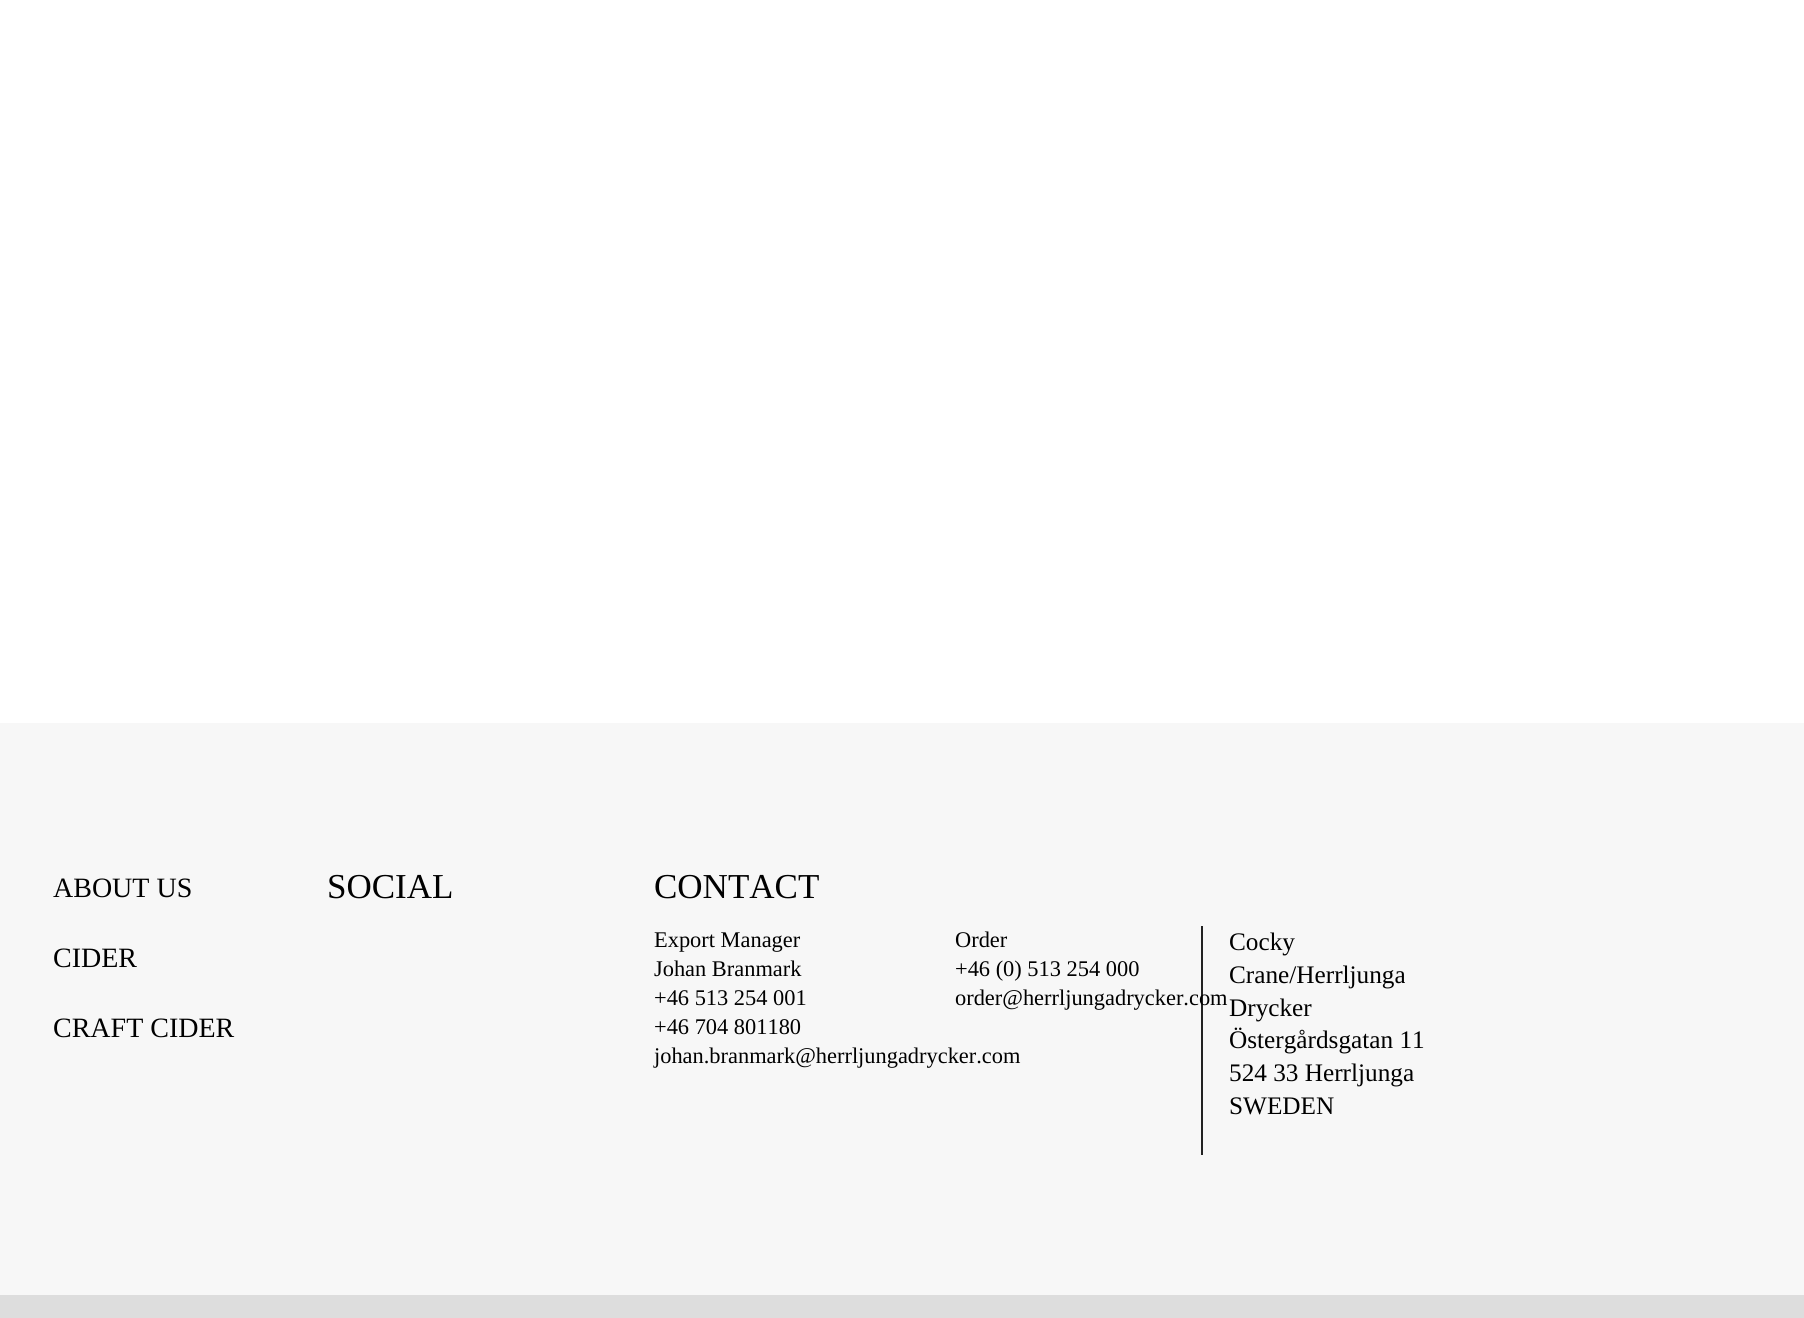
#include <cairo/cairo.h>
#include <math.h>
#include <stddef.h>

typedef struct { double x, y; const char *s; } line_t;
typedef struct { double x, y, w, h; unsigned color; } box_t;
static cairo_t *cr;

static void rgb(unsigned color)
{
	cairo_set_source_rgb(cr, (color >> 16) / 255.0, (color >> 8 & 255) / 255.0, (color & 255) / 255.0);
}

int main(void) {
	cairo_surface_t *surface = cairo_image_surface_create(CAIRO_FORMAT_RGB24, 1804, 1318);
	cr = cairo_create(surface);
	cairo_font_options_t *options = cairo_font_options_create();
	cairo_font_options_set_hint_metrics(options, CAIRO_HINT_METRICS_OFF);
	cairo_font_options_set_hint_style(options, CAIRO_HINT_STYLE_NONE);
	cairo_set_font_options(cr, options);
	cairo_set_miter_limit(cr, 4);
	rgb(0xffffff);
	cairo_paint(cr);
	{
		static const box_t items[] = {
			{0, 723, 1804, 572, 0xf7f7f7},
			{1201, 926, 2, 229, 0x222222},
			{0, 1295, 1804, 23, 0xdddddd},
		};
		for (size_t i = 0; i < sizeof items / sizeof *items; i++) {
			rgb(items[i].color);
			cairo_rectangle(cr, items[i].x, items[i].y, items[i].w, items[i].h);
			cairo_fill(cr);
		}
	}
	cairo_select_font_face(cr, "Liberation Serif", CAIRO_FONT_SLANT_NORMAL, CAIRO_FONT_WEIGHT_NORMAL);
	cairo_set_font_size(cr, 28);
	rgb(0x000000);
	{
		static const line_t items[] = {
			{53, 897, "ABOUT US"},
			{53, 967, "CIDER"},
			{53, 1037, "CRAFT CIDER"},
		};
		for (size_t i = 0; i < sizeof items / sizeof *items; i++) {
			cairo_move_to(cr, items[i].x, items[i].y);
			cairo_show_text(cr, items[i].s);
		}
	}
	cairo_set_font_size(cr, 35);
	cairo_move_to(cr, 327, 898);
	cairo_show_text(cr, "SOCIAL");
	cairo_move_to(cr, 654, 898);
	cairo_show_text(cr, "CONTACT");
	cairo_set_font_size(cr, 22.4);
	{
		static const line_t items[] = {
			{654, 947, "Export Manager"},
			{654, 976, "Johan Branmark"},
			{654, 1005, "+46 513 254 001"},
			{654, 1034, "+46 704 801180"},
			{654, 1063, "johan.branmark@herrljungadrycker.com"},
			{955, 947, "Order"},
			{955, 976, "+46 (0) 513 254 000"},
			{955, 1005, "order@herrljungadrycker.com"},
		};
		for (size_t i = 0; i < sizeof items / sizeof *items; i++) {
			cairo_move_to(cr, items[i].x, items[i].y);
			cairo_show_text(cr, items[i].s);
		}
	}
	cairo_set_font_size(cr, 25.25);
	{
		static const line_t items[] = {
			{1229, 950, "Cocky"},
			{1229, 983, "Crane/Herrljunga"},
			{1229, 1016, "Drycker"},
			{1229, 1048, "Östergårdsgatan 11"},
			{1229, 1081, "524 33 Herrljunga"},
			{1229, 1114, "SWEDEN"},
		};
		for (size_t i = 0; i < sizeof items / sizeof *items; i++) {
			cairo_move_to(cr, items[i].x, items[i].y);
			cairo_show_text(cr, items[i].s);
		}
	}
	cairo_surface_write_to_png(surface, "page.png");
	cairo_font_options_destroy(options);
	cairo_destroy(cr);
	cairo_surface_destroy(surface);
	return 0;
}
